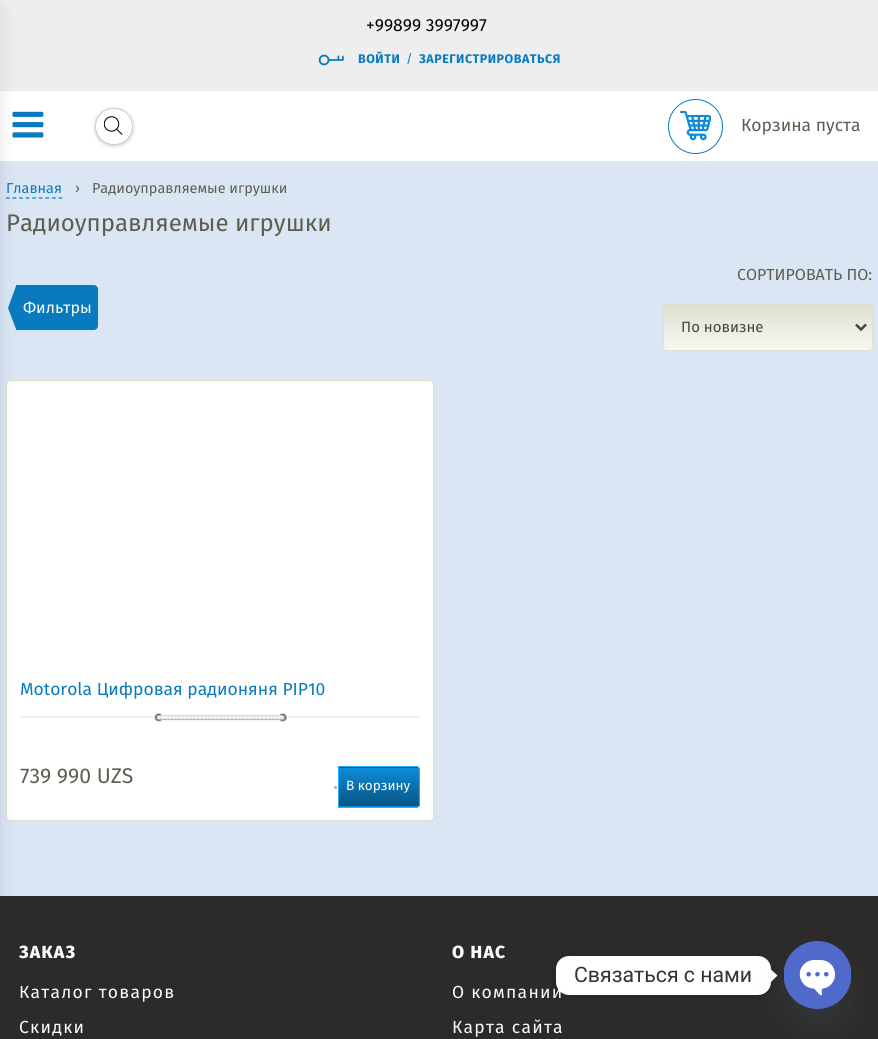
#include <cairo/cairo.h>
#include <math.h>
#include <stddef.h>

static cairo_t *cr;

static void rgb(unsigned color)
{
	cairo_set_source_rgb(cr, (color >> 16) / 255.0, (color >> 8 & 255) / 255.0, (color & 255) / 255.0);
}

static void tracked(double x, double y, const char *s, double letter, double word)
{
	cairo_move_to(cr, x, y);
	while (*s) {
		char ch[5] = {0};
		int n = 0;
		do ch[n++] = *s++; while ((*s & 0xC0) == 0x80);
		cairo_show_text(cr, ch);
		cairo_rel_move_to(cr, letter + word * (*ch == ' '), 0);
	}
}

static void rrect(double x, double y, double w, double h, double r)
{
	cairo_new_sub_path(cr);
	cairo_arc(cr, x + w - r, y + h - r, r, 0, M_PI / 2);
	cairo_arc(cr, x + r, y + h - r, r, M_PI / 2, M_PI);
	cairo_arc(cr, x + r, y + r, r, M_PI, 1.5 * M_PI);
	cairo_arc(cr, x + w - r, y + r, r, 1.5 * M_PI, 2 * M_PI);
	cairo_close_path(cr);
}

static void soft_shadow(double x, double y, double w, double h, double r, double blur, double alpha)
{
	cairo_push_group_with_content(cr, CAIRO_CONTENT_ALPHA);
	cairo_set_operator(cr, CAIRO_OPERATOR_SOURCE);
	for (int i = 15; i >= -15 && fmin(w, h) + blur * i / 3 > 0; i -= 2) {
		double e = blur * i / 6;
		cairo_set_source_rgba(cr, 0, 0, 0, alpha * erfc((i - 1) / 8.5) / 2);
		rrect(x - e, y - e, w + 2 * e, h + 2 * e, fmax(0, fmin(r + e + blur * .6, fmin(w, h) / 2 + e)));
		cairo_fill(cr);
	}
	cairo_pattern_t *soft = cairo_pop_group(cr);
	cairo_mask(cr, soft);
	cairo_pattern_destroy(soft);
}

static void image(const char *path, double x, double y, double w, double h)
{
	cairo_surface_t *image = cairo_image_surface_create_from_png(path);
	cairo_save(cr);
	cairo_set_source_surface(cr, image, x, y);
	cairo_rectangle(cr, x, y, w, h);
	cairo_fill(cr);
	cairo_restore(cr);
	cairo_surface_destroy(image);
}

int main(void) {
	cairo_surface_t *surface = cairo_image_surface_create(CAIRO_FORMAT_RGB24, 878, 1039);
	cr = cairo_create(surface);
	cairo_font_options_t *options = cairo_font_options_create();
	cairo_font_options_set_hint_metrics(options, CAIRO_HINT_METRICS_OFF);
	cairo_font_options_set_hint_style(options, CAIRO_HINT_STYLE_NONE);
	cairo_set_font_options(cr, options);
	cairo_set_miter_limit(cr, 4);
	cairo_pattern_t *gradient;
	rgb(0xdae6f4);
	cairo_paint(cr);
	rgb(0xeeeeee);
	cairo_rectangle(cr, 0, 0, 878, 91);
	cairo_fill(cr);
	rgb(0x000000);
	soft_shadow(0, 93, 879, 70, 0, 2, 0.2);
	rgb(0xffffff);
	cairo_rectangle(cr, 0, 91, 878, 70);
	cairo_fill(cr);
	image("img/2.png", 12, 111, 32, 27);
	rgb(0xdae6f4);
	cairo_rectangle(cr, 0, 161, 878, 5);
	cairo_fill(cr);
	cairo_new_path(cr);
	cairo_move_to(cr, 6, 198);
	cairo_line_to(cr, 62.5, 198);
	rgb(0x087abd);
	cairo_set_line_width(cr, 1.2);
	cairo_set_dash(cr, (double[]){3.75, 2.81}, 2, 0);
	cairo_stroke(cr);
	cairo_new_path(cr);
	cairo_move_to(cr, 16, 286);
	cairo_line_to(cr, 16, 329);
	cairo_line_to(cr, 8, 308);
	cairo_close_path(cr);
	cairo_fill(cr);
	cairo_new_path(cr);
	cairo_move_to(cr, 16, 285);
	cairo_line_to(cr, 94, 285);
	cairo_curve_to(cr, 96, 285, 98, 287, 98, 289);
	cairo_line_to(cr, 98, 326);
	cairo_curve_to(cr, 98, 328, 96, 330, 94, 330);
	cairo_line_to(cr, 16, 330);
	cairo_close_path(cr);
	cairo_fill(cr);
	rgb(0xffffff);
	rrect(6.5, 380.5, 427, 440, 3.5);
	cairo_fill_preserve(cr);
	rgb(0xdedfcd);
	cairo_set_line_width(cr, 1);
	cairo_set_dash(cr, NULL, 0, 0);
	cairo_stroke(cr);
	image("img/5.png", 20, 713, 400, 9);
	rgb(0x2c2b29);
	cairo_rectangle(cr, 0, 896, 878, 143);
	cairo_fill(cr);
	rgb(0x000000);
	soft_shadow(-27, 10, 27, 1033, 0, 9, 0.11);
	image("img/1.png", 318, 54, 26, 12);
	soft_shadow(95, 109, 38, 37, 18.5, 2, 0.2);
	rgb(0xffffff);
	rrect(95.5, 108.5, 37, 36, 18);
	cairo_fill_preserve(cr);
	rgb(0xcccccc);
	cairo_stroke(cr);
	image("img/3.png", 104, 116, 19, 19);
	cairo_arc(cr, 695.5, 126.5, 27, 0, 2 * M_PI);
	rgb(0x087abd);
	cairo_stroke(cr);
	image("img/4.png", 680, 110, 31, 31);
	cairo_save(cr);
	rrect(663, 304, 210, 47, 4);
	cairo_clip(cr);
	gradient = cairo_pattern_create_linear(768, 305, 768, 350);
	cairo_pattern_add_color_stop_rgba(gradient, 0, 0.878, 0.878, 0.82, 1);
	cairo_pattern_add_color_stop_rgba(gradient, 1, 0.969, 0.969, 0.953, 1);
	cairo_set_source(cr, gradient);
	cairo_pattern_destroy(gradient);
	cairo_rectangle(cr, 663, 305, 210, 45);
	cairo_fill(cr);
	cairo_restore(cr);
	rrect(663.5, 304.5, 209, 46, 3.5);
	rgb(0xdedfcd);
	cairo_stroke(cr);
	cairo_new_path(cr);
	cairo_move_to(cr, 856, 324.5);
	cairo_line_to(cr, 861, 329.5);
	cairo_line_to(cr, 866, 324.5);
	rgb(0x444444);
	cairo_set_line_width(cr, 2.5);
	cairo_stroke(cr);
	rgb(0xf7f7f3);
	cairo_arc(cr, 335.5, 787.5, 1.5, 0, 2 * M_PI);
	cairo_fill(cr);
	cairo_set_source_rgba(cr, 0, 0, 0, 0.3);
	cairo_arc(cr, 335.5, 787.5, 1.5, 0, 2 * M_PI);
	cairo_fill(cr);
	cairo_save(cr);
	cairo_new_path(cr);
	cairo_move_to(cr, 338, 766);
	cairo_line_to(cr, 416, 766);
	cairo_curve_to(cr, 418, 766, 420, 768, 420, 770);
	cairo_line_to(cr, 420, 804);
	cairo_curve_to(cr, 420, 806, 418, 808, 416, 808);
	cairo_line_to(cr, 338, 808);
	cairo_close_path(cr);
	cairo_clip(cr);
	gradient = cairo_pattern_create_linear(379, 729, 379, 768);
	cairo_pattern_add_color_stop_rgba(gradient, 0, 0.047, 0.549, 0.847, 1);
	cairo_pattern_add_color_stop_rgba(gradient, 1, 0.035, 0.333, 0.51, 1);
	cairo_set_source(cr, gradient);
	cairo_pattern_destroy(gradient);
	cairo_rectangle(cr, 338, 766, 82, 2);
	cairo_fill(cr);
	cairo_restore(cr);
	gradient = cairo_pattern_create_linear(379, 768, 379, 806);
	cairo_pattern_add_color_stop_rgba(gradient, 0, 0.047, 0.549, 0.847, 1);
	cairo_pattern_add_color_stop_rgba(gradient, 1, 0.035, 0.333, 0.51, 1);
	cairo_set_source(cr, gradient);
	cairo_pattern_destroy(gradient);
	cairo_rectangle(cr, 339, 768, 81, 38);
	cairo_fill(cr);
	cairo_save(cr);
	cairo_new_path(cr);
	cairo_move_to(cr, 338, 766);
	cairo_line_to(cr, 416, 766);
	cairo_curve_to(cr, 418, 766, 420, 768, 420, 770);
	cairo_line_to(cr, 420, 804);
	cairo_curve_to(cr, 420, 806, 418, 808, 416, 808);
	cairo_line_to(cr, 338, 808);
	cairo_close_path(cr);
	cairo_clip(cr);
	gradient = cairo_pattern_create_linear(379, 806, 379, 845);
	cairo_pattern_add_color_stop_rgba(gradient, 0, 0.047, 0.549, 0.847, 1);
	cairo_pattern_add_color_stop_rgba(gradient, 1, 0.035, 0.333, 0.51, 1);
	cairo_set_source(cr, gradient);
	cairo_pattern_destroy(gradient);
	cairo_rectangle(cr, 338, 806, 82, 2);
	cairo_fill(cr);
	cairo_restore(cr);
	cairo_new_path(cr);
	cairo_move_to(cr, 338.5, 766.5);
	cairo_line_to(cr, 416, 766.5);
	cairo_curve_to(cr, 418, 766.5, 419.5, 768, 419.5, 770);
	cairo_line_to(cr, 419.5, 804);
	cairo_curve_to(cr, 419.5, 806, 418, 807.5, 416, 807.5);
	cairo_line_to(cr, 338.5, 807.5);
	cairo_close_path(cr);
	rgb(0x28acf9);
	cairo_set_line_width(cr, 1);
	cairo_stroke(cr);
	rgb(0x000000);
	soft_shadow(556, 958, 215, 38, 13, 5, 0.15);
	rgb(0xffffff);
	cairo_new_path(cr);
	cairo_move_to(cr, 771, 982);
	cairo_line_to(cr, 771, 969.5);
	cairo_line_to(cr, 777.5, 975.5);
	cairo_close_path(cr);
	cairo_fill(cr);
	cairo_select_font_face(cr, "Fira Sans", CAIRO_FONT_SLANT_NORMAL, CAIRO_FONT_WEIGHT_NORMAL);
	cairo_set_font_size(cr, 17.5);
	rgb(0x000000);
	cairo_move_to(cr, 366, 31);
	cairo_show_text(cr, "+99899 3997997");
	cairo_select_font_face(cr, "Fira Sans", CAIRO_FONT_SLANT_NORMAL, CAIRO_FONT_WEIGHT_BOLD);
	cairo_set_font_size(cr, 12.5);
	rgb(0x087abd);
	tracked(358, 63, "ВОЙТИ", 0.5, 0);
	cairo_select_font_face(cr, "Fira Sans", CAIRO_FONT_SLANT_NORMAL, CAIRO_FONT_WEIGHT_NORMAL);
	cairo_move_to(cr, 406, 63);
	cairo_show_text(cr, "/");
	cairo_select_font_face(cr, "Fira Sans", CAIRO_FONT_SLANT_NORMAL, CAIRO_FONT_WEIGHT_BOLD);
	tracked(419, 63, "ЗАРЕГИСТРИРОВАТЬСЯ", 0.5, 0);
	cairo_select_font_face(cr, "Fira Sans", CAIRO_FONT_SLANT_NORMAL, CAIRO_FONT_WEIGHT_NORMAL);
	cairo_set_font_size(cr, 17.5);
	rgb(0x5d5e4f);
	cairo_move_to(cr, 741, 131);
	cairo_show_text(cr, "Корзина пуста");
	cairo_set_font_size(cr, 14.4);
	rgb(0x087abd);
	cairo_move_to(cr, 6, 193);
	cairo_show_text(cr, "Главная");
	rgb(0x5d5e4f);
	cairo_move_to(cr, 75, 193);
	cairo_show_text(cr, "›");
	cairo_move_to(cr, 92, 193);
	cairo_show_text(cr, "Радиоуправляемые игрушки");
	cairo_set_font_size(cr, 24);
	cairo_move_to(cr, 6, 231);
	cairo_show_text(cr, "Радиоуправляемые игрушки");
	cairo_set_font_size(cr, 16);
	rgb(0xffffff);
	cairo_move_to(cr, 23, 313);
	cairo_show_text(cr, "Фильтры");
	rgb(0x5d5e4f);
	cairo_move_to(cr, 737, 280);
	cairo_show_text(cr, "СОРТИРОВАТЬ ПО:");
	cairo_set_font_size(cr, 15);
	rgb(0x444444);
	cairo_move_to(cr, 681, 332);
	cairo_show_text(cr, "По новизне");
	cairo_set_font_size(cr, 17.5);
	rgb(0x087abd);
	cairo_move_to(cr, 20, 695);
	cairo_show_text(cr, "Motorola Цифровая радионяня PIP10");
	cairo_set_font_size(cr, 21.25);
	rgb(0x5d5e4f);
	cairo_move_to(cr, 20, 783);
	cairo_show_text(cr, "739 990 UZS");
	cairo_set_font_size(cr, 13.5);
	rgb(0xffffff);
	cairo_move_to(cr, 346, 790);
	cairo_show_text(cr, "В корзину");
	cairo_select_font_face(cr, "Fira Sans ExtraBold", CAIRO_FONT_SLANT_NORMAL, CAIRO_FONT_WEIGHT_NORMAL);
	cairo_set_font_size(cr, 17.5);
	rgb(0xf8faff);
	tracked(19, 958, "ЗАКАЗ", 1.25, 0);
	cairo_select_font_face(cr, "Fira Sans", CAIRO_FONT_SLANT_NORMAL, CAIRO_FONT_WEIGHT_NORMAL);
	tracked(19, 998, "Каталог товаров", 1.25, 0);
	tracked(19, 1033, "Скидки", 1.25, 0);
	cairo_select_font_face(cr, "Fira Sans ExtraBold", CAIRO_FONT_SLANT_NORMAL, CAIRO_FONT_WEIGHT_NORMAL);
	tracked(452, 958, "О НАС", 1.25, 0);
	cairo_select_font_face(cr, "Fira Sans", CAIRO_FONT_SLANT_NORMAL, CAIRO_FONT_WEIGHT_NORMAL);
	tracked(452, 998, "О компании", 1.25, 0);
	tracked(452, 1033, "Карта сайта", 1.25, 0);
	rgb(0xffffff);
	rrect(556, 956, 215, 39, 13);
	cairo_fill(cr);
	cairo_select_font_face(cr, "Roboto", CAIRO_FONT_SLANT_NORMAL, CAIRO_FONT_WEIGHT_NORMAL);
	cairo_set_font_size(cr, 21.25);
	rgb(0x333333);
	cairo_move_to(cr, 574, 982);
	cairo_show_text(cr, "Связаться с нами");
	rgb(0x49687e);
	soft_shadow(784, 961, 67, 68, 33.5, 15, 0.16);
	image("img/6.png", 784, 941, 67, 68);
	cairo_surface_write_to_png(surface, "page.png");
	cairo_font_options_destroy(options);
	cairo_destroy(cr);
	cairo_surface_destroy(surface);
	return 0;
}
